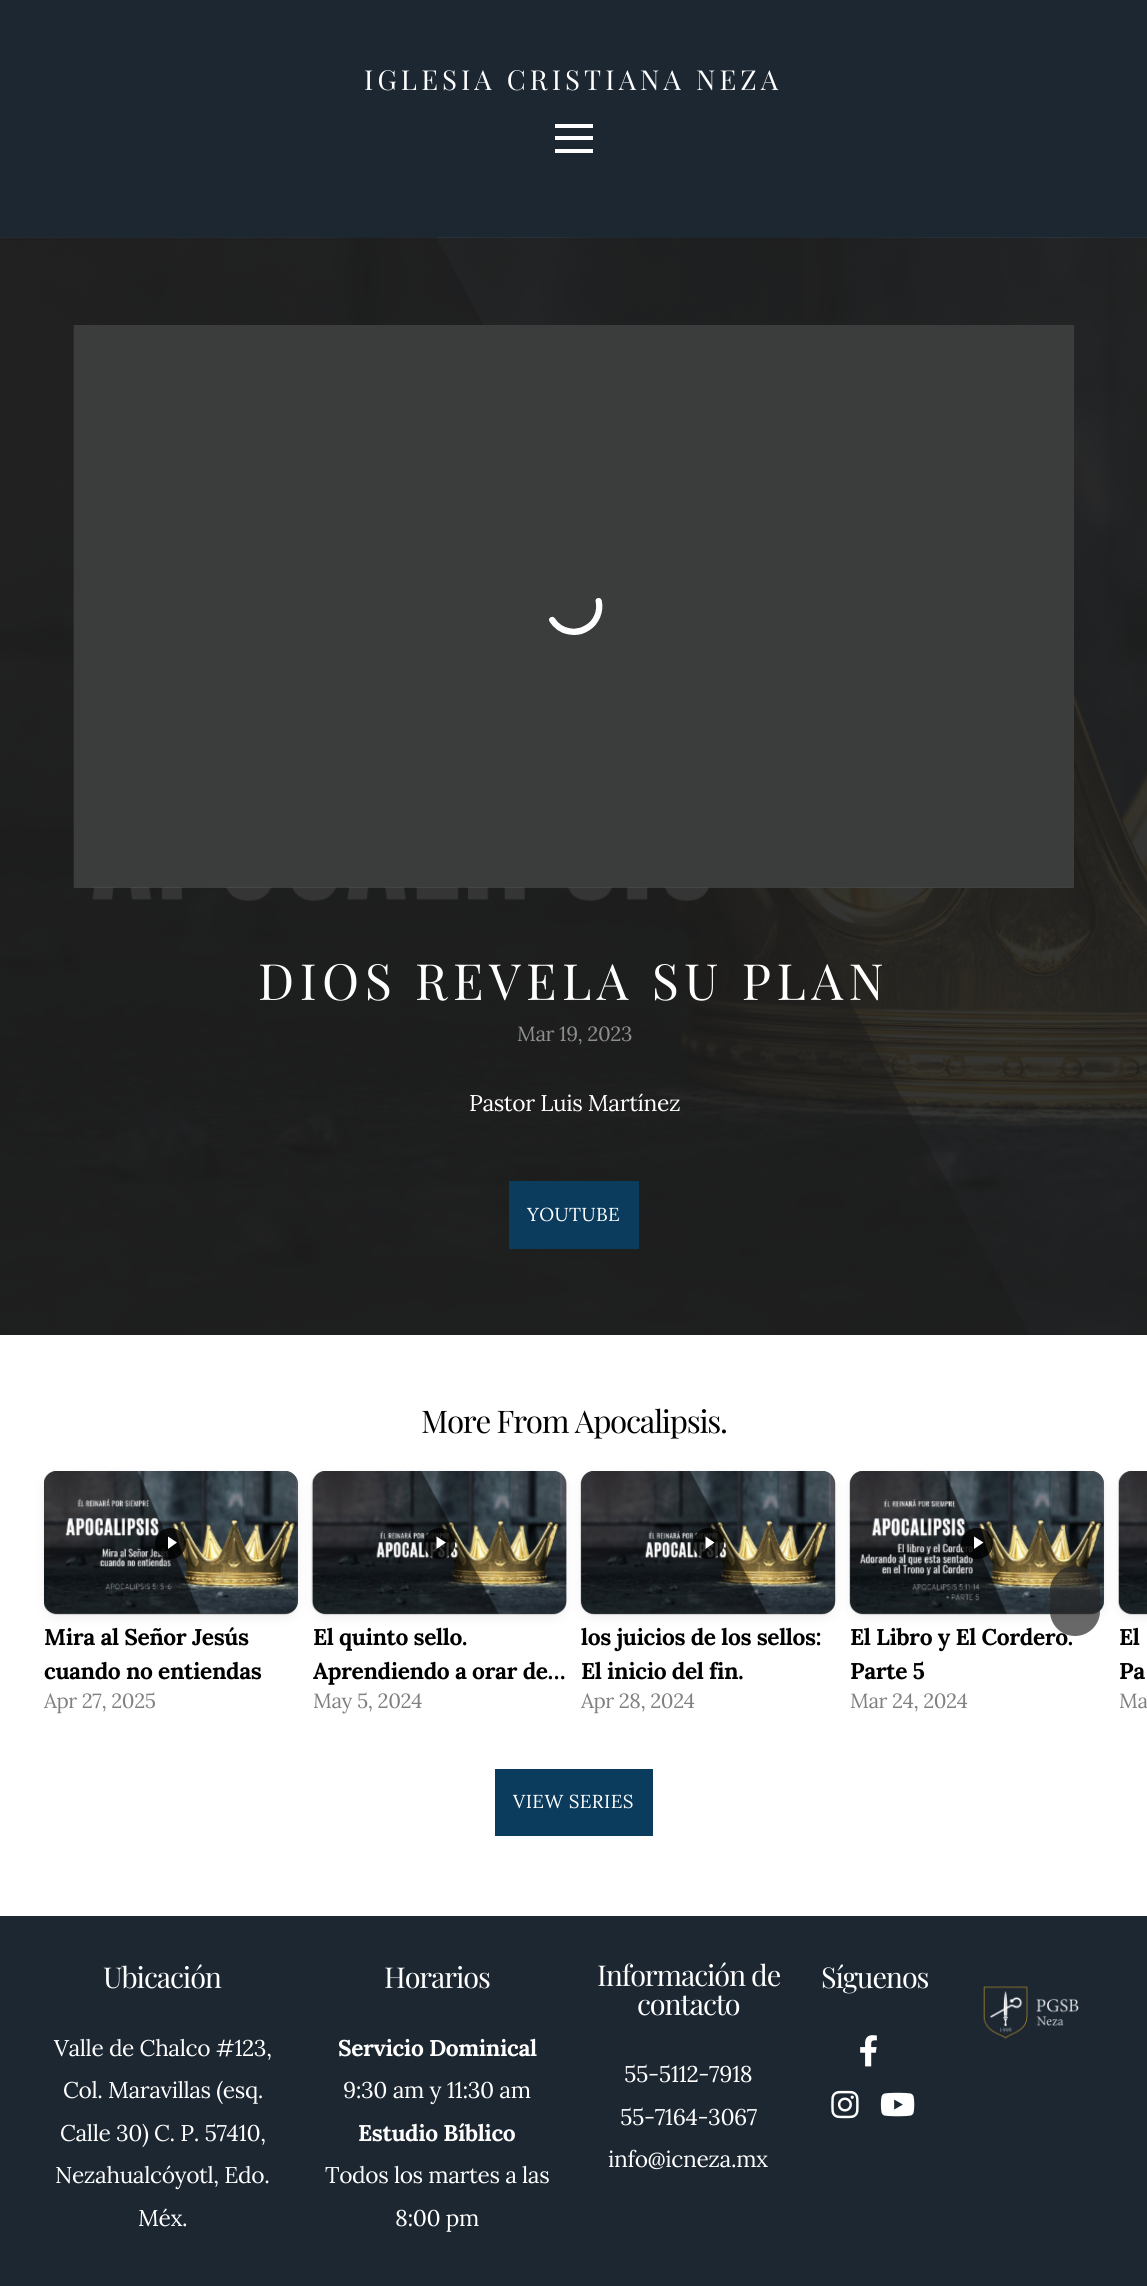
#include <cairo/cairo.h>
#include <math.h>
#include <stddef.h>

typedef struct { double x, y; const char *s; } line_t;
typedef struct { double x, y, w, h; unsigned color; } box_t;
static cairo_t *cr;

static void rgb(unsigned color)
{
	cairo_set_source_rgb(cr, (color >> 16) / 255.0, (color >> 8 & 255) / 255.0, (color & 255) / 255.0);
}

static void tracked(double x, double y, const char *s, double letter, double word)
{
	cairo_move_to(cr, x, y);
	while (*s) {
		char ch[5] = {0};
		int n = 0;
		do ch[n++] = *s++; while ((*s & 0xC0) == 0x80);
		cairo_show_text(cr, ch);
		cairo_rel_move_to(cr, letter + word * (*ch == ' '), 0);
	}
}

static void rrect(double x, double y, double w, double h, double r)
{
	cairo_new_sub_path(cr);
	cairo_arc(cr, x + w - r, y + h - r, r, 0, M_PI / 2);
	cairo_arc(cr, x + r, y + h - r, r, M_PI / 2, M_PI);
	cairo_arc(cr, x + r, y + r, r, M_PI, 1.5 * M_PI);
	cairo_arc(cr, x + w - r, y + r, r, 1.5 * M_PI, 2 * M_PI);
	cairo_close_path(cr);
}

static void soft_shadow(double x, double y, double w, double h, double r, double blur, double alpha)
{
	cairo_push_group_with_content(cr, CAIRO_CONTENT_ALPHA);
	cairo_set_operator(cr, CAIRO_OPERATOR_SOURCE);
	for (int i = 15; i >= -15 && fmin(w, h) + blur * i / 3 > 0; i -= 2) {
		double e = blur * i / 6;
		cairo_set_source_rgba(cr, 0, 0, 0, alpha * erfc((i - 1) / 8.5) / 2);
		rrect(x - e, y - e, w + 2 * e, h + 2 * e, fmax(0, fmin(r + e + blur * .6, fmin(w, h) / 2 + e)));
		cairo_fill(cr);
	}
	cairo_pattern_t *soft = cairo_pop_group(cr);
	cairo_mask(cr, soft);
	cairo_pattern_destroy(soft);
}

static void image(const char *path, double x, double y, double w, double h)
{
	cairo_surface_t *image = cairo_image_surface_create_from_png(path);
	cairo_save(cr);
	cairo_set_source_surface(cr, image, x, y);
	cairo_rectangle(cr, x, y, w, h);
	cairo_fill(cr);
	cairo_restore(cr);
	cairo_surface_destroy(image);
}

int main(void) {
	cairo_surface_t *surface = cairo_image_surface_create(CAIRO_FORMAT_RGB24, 1147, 2286);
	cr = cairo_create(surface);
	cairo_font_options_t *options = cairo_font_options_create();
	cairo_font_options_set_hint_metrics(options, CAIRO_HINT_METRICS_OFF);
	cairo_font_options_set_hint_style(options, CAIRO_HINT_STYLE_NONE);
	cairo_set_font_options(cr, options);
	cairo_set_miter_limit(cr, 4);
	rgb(0x1d2731);
	cairo_paint(cr);
	{
		static const box_t items[] = {
			{555, 124, 38, 4, 0xffffff},
			{555, 136, 38, 4, 0xffffff},
			{555, 149, 38, 4, 0xffffff},
		};
		for (size_t i = 0; i < sizeof items / sizeof *items; i++) {
			rgb(items[i].color);
			cairo_rectangle(cr, items[i].x, items[i].y, items[i].w, items[i].h);
			cairo_fill(cr);
		}
	}
	image("img/1.png", 0, 237, 1147, 1098);
	image("img/2.png", 73, 325, 1001, 563);
	rgb(0x0b3c5d);
	cairo_rectangle(cr, 509, 1181, 130, 68);
	cairo_fill(cr);
	rgb(0xffffff);
	cairo_rectangle(cr, 0, 1335, 1147, 581);
	cairo_fill(cr);
	rgb(0x000000);
	soft_shadow(44, 1473, 254, 142, 13, 1, 0.04);
	soft_shadow(44, 1475, 254, 143, 13, 6, 0.06);
	rgb(0x444845);
	rrect(44, 1471, 254, 143, 13);
	cairo_fill(cr);
	image("img/3.png", 44, 1471, 254, 144);
	cairo_set_source_rgba(cr, 0, 0, 0, 0.8);
	cairo_arc(cr, 170.5, 1543.5, 15.5, 0, 2 * M_PI);
	cairo_fill(cr);
	rgb(0xffffff);
	cairo_new_path(cr);
	cairo_move_to(cr, 168, 1549);
	cairo_line_to(cr, 168, 1536.5);
	cairo_line_to(cr, 177, 1542.5);
	cairo_close_path(cr);
	cairo_fill(cr);
	rgb(0x000000);
	soft_shadow(313, 1473, 253, 142, 13, 1, 0.04);
	soft_shadow(313, 1475, 253, 143, 13, 6, 0.06);
	rgb(0x3a3d3b);
	rrect(313, 1471, 253, 143, 13);
	cairo_fill(cr);
	image("img/4.png", 311, 1471, 256, 144);
	cairo_set_source_rgba(cr, 0, 0, 0, 0.8);
	cairo_arc(cr, 439.5, 1543.5, 15.5, 0, 2 * M_PI);
	cairo_fill(cr);
	rgb(0xffffff);
	cairo_new_path(cr);
	cairo_move_to(cr, 436.5, 1549);
	cairo_line_to(cr, 436.5, 1536.5);
	cairo_line_to(cr, 446, 1542.5);
	cairo_close_path(cr);
	cairo_fill(cr);
	rgb(0x000000);
	soft_shadow(581, 1473, 254, 142, 13, 1, 0.04);
	soft_shadow(581, 1475, 254, 143, 13, 6, 0.06);
	rgb(0x3a3d3b);
	rrect(581, 1471, 254, 143, 13);
	cairo_fill(cr);
	image("img/5.png", 580, 1471, 256, 144);
	cairo_set_source_rgba(cr, 0, 0, 0, 0.8);
	cairo_arc(cr, 708.5, 1543.5, 15.5, 0, 2 * M_PI);
	cairo_fill(cr);
	rgb(0xffffff);
	cairo_new_path(cr);
	cairo_move_to(cr, 705.5, 1549);
	cairo_line_to(cr, 705.5, 1536.5);
	cairo_line_to(cr, 714.5, 1542.5);
	cairo_close_path(cr);
	cairo_fill(cr);
	rgb(0x000000);
	soft_shadow(850, 1473, 254, 142, 13, 1, 0.04);
	soft_shadow(850, 1475, 254, 143, 13, 6, 0.06);
	rgb(0x464a47);
	rrect(850, 1471, 254, 143, 13);
	cairo_fill(cr);
	image("img/6.png", 849, 1471, 255, 144);
	cairo_set_source_rgba(cr, 0, 0, 0, 0.8);
	rrect(961, 1528, 32, 31, 15.5);
	cairo_fill(cr);
	rgb(0xffffff);
	cairo_new_path(cr);
	cairo_move_to(cr, 974, 1549);
	cairo_line_to(cr, 974, 1536.5);
	cairo_line_to(cr, 983.5, 1542.5);
	cairo_close_path(cr);
	cairo_fill(cr);
	rgb(0x000000);
	soft_shadow(1119, 1473, 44, 142, 13, 1, 0.04);
	soft_shadow(1119, 1475, 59, 143, 13, 6, 0.06);
	rgb(0x3a3d3b);
	cairo_new_path(cr);
	cairo_move_to(cr, 1132, 1471);
	cairo_line_to(cr, 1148, 1471);
	cairo_line_to(cr, 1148, 1614);
	cairo_line_to(cr, 1132, 1614);
	cairo_curve_to(cr, 1125, 1614, 1119, 1608, 1119, 1601);
	cairo_line_to(cr, 1119, 1484);
	cairo_curve_to(cr, 1119, 1477, 1125, 1471, 1132, 1471);
	cairo_close_path(cr);
	cairo_fill(cr);
	image("img/7.png", 1118, 1471, 29, 144);
	rgb(0x0b3c5d);
	cairo_rectangle(cr, 495, 1769, 158, 67);
	cairo_fill(cr);
	image("img/8.png", 860, 2035, 17, 32);
	image("img/9.png", 831, 2090, 28, 29);
	image("img/10.png", 880, 2092, 35, 25);
	image("img/11.png", 983, 1986, 96, 53);
	cairo_select_font_face(cr, "Playfair Display", CAIRO_FONT_SLANT_NORMAL, CAIRO_FONT_WEIGHT_NORMAL);
	cairo_set_font_size(cr, 27.5);
	rgb(0xffffff);
	tracked(364, 90, "IGLESIA CRISTIANA NEZA", 4.1, 0);
	cairo_set_font_size(cr, 50);
	tracked(258, 1000, "DIOS REVELA SU PLAN", 5.5, 0);
	cairo_select_font_face(cr, "Lora", CAIRO_FONT_SLANT_NORMAL, CAIRO_FONT_WEIGHT_NORMAL);
	cairo_set_font_size(cr, 20.5);
	rgb(0x8e8e8e);
	tracked(517, 1041, "Mar 19, 2023", -0.4, 0);
	cairo_set_font_size(cr, 22.75);
	rgb(0xffffff);
	tracked(469, 1111, "Pastor Luis Martínez", -0.4, 0);
	cairo_set_font_size(cr, 18.75);
	tracked(527, 1221, "YOUTUBE", 0.4, 0);
	cairo_select_font_face(cr, "Playfair Display", CAIRO_FONT_SLANT_NORMAL, CAIRO_FONT_WEIGHT_NORMAL);
	cairo_set_font_size(cr, 31.25);
	rgb(0x000000);
	tracked(421, 1433, "More From Apocalipsis.", -1.25, 0);
	cairo_select_font_face(cr, "Lora", CAIRO_FONT_SLANT_NORMAL, CAIRO_FONT_WEIGHT_BOLD);
	cairo_set_font_size(cr, 22.75);
	tracked(44, 1645, "Mira al Señor Jesús", -0.4, 0);
	tracked(44, 1679, "cuando no entiendas", -0.4, 0);
	cairo_select_font_face(cr, "Lora", CAIRO_FONT_SLANT_NORMAL, CAIRO_FONT_WEIGHT_NORMAL);
	cairo_set_font_size(cr, 20.5);
	rgb(0x808080);
	tracked(44, 1708, "Apr 27, 2025", -0.4, 0);
	cairo_select_font_face(cr, "Lora", CAIRO_FONT_SLANT_NORMAL, CAIRO_FONT_WEIGHT_BOLD);
	cairo_set_font_size(cr, 22.75);
	rgb(0x000000);
	tracked(313, 1645, "El quinto sello.", -0.4, 0);
	tracked(313, 1679, "Aprendiendo a orar de…", -0.4, 0);
	cairo_select_font_face(cr, "Lora", CAIRO_FONT_SLANT_NORMAL, CAIRO_FONT_WEIGHT_NORMAL);
	cairo_set_font_size(cr, 20.5);
	rgb(0x808080);
	tracked(313, 1708, "May 5, 2024", -0.4, 0);
	cairo_select_font_face(cr, "Lora", CAIRO_FONT_SLANT_NORMAL, CAIRO_FONT_WEIGHT_BOLD);
	cairo_set_font_size(cr, 22.75);
	rgb(0x000000);
	tracked(581, 1645, "los juicios de los sellos:", -0.4, 0);
	tracked(581, 1679, "El inicio del fin.", -0.4, 0);
	cairo_select_font_face(cr, "Lora", CAIRO_FONT_SLANT_NORMAL, CAIRO_FONT_WEIGHT_NORMAL);
	cairo_set_font_size(cr, 20.5);
	rgb(0x808080);
	tracked(581, 1708, "Apr 28, 2024", -0.4, 0);
	cairo_select_font_face(cr, "Lora", CAIRO_FONT_SLANT_NORMAL, CAIRO_FONT_WEIGHT_BOLD);
	cairo_set_font_size(cr, 22.75);
	rgb(0x000000);
	tracked(850, 1645, "El Libro y El Cordero.", -0.4, 0);
	cairo_set_source_rgba(cr, 0.157, 0.157, 0.157, 0.7);
	rrect(1050, 1566, 50, 70, 25);
	cairo_fill(cr);
	rgb(0x000000);
	tracked(850, 1679, "Parte 5", -0.4, 0);
	cairo_select_font_face(cr, "Lora", CAIRO_FONT_SLANT_NORMAL, CAIRO_FONT_WEIGHT_NORMAL);
	cairo_set_font_size(cr, 20.5);
	rgb(0x808080);
	tracked(850, 1708, "Mar 24, 2024", -0.4, 0);
	cairo_select_font_face(cr, "Lora", CAIRO_FONT_SLANT_NORMAL, CAIRO_FONT_WEIGHT_BOLD);
	cairo_set_font_size(cr, 22.75);
	rgb(0x000000);
	tracked(1119, 1645, "El", -0.4, 0);
	tracked(1119, 1679, "Pa", -0.4, 0);
	cairo_select_font_face(cr, "Lora", CAIRO_FONT_SLANT_NORMAL, CAIRO_FONT_WEIGHT_NORMAL);
	cairo_set_font_size(cr, 20.5);
	rgb(0x808080);
	tracked(1119, 1708, "Ma", -0.4, 0);
	cairo_set_font_size(cr, 18.75);
	rgb(0xffffff);
	tracked(513, 1808, "VIEW SERIES", 0.4, 0);
	cairo_select_font_face(cr, "Playfair Display", CAIRO_FONT_SLANT_NORMAL, CAIRO_FONT_WEIGHT_NORMAL);
	cairo_set_font_size(cr, 28.75);
	tracked(103, 1988, "Ubicación", -1.1, 0);
	cairo_select_font_face(cr, "Lora", CAIRO_FONT_SLANT_NORMAL, CAIRO_FONT_WEIGHT_NORMAL);
	cairo_set_font_size(cr, 22.75);
	{
		static const line_t items[] = {
			{54, 2056, "Valle de Chalco #123,"},
			{63, 2098, "Col. Maravillas (esq."},
			{60, 2141, "Calle 30) C. P. 57410,"},
			{55, 2183, "Nezahualcóyotl, Edo."},
			{138, 2226, "Méx."},
		};
		for (size_t i = 0; i < sizeof items / sizeof *items; i++) {
			tracked(items[i].x, items[i].y, items[i].s, -0.4, 0);
		}
	}
	cairo_select_font_face(cr, "Playfair Display", CAIRO_FONT_SLANT_NORMAL, CAIRO_FONT_WEIGHT_NORMAL);
	cairo_set_font_size(cr, 28.75);
	tracked(384, 1988, "Horarios", -1.1, 0);
	cairo_select_font_face(cr, "Lora", CAIRO_FONT_SLANT_NORMAL, CAIRO_FONT_WEIGHT_BOLD);
	cairo_set_font_size(cr, 22.75);
	tracked(338, 2056, "Servicio Dominical", -0.4, 0);
	cairo_select_font_face(cr, "Lora", CAIRO_FONT_SLANT_NORMAL, CAIRO_FONT_WEIGHT_NORMAL);
	tracked(343, 2098, "9:30 am y 11:30 am", -0.4, 0);
	cairo_select_font_face(cr, "Lora", CAIRO_FONT_SLANT_NORMAL, CAIRO_FONT_WEIGHT_BOLD);
	tracked(358, 2141, "Estudio Bíblico", -0.4, 0);
	cairo_select_font_face(cr, "Lora", CAIRO_FONT_SLANT_NORMAL, CAIRO_FONT_WEIGHT_NORMAL);
	tracked(325, 2183, "Todos los martes a las", -0.4, 0);
	tracked(395, 2226, "8:00 pm", -0.4, 0);
	cairo_select_font_face(cr, "Playfair Display", CAIRO_FONT_SLANT_NORMAL, CAIRO_FONT_WEIGHT_NORMAL);
	cairo_set_font_size(cr, 28.75);
	tracked(597, 1986, "Información de", -1.1, 0);
	tracked(637, 2015, "contacto", -1.1, 0);
	cairo_select_font_face(cr, "Lora", CAIRO_FONT_SLANT_NORMAL, CAIRO_FONT_WEIGHT_NORMAL);
	cairo_set_font_size(cr, 22.75);
	{
		static const line_t items[] = {
			{624, 2082, "55-5112-7918"},
			{620, 2125, "55-7164-3067"},
			{608, 2167, "info@icneza.mx"},
		};
		for (size_t i = 0; i < sizeof items / sizeof *items; i++) {
			tracked(items[i].x, items[i].y, items[i].s, -0.4, 0);
		}
	}
	cairo_select_font_face(cr, "Playfair Display", CAIRO_FONT_SLANT_NORMAL, CAIRO_FONT_WEIGHT_NORMAL);
	cairo_set_font_size(cr, 28.75);
	tracked(821, 1988, "Síguenos", -1.1, 0);
	cairo_surface_write_to_png(surface, "page.png");
	cairo_font_options_destroy(options);
	cairo_destroy(cr);
	cairo_surface_destroy(surface);
	return 0;
}
